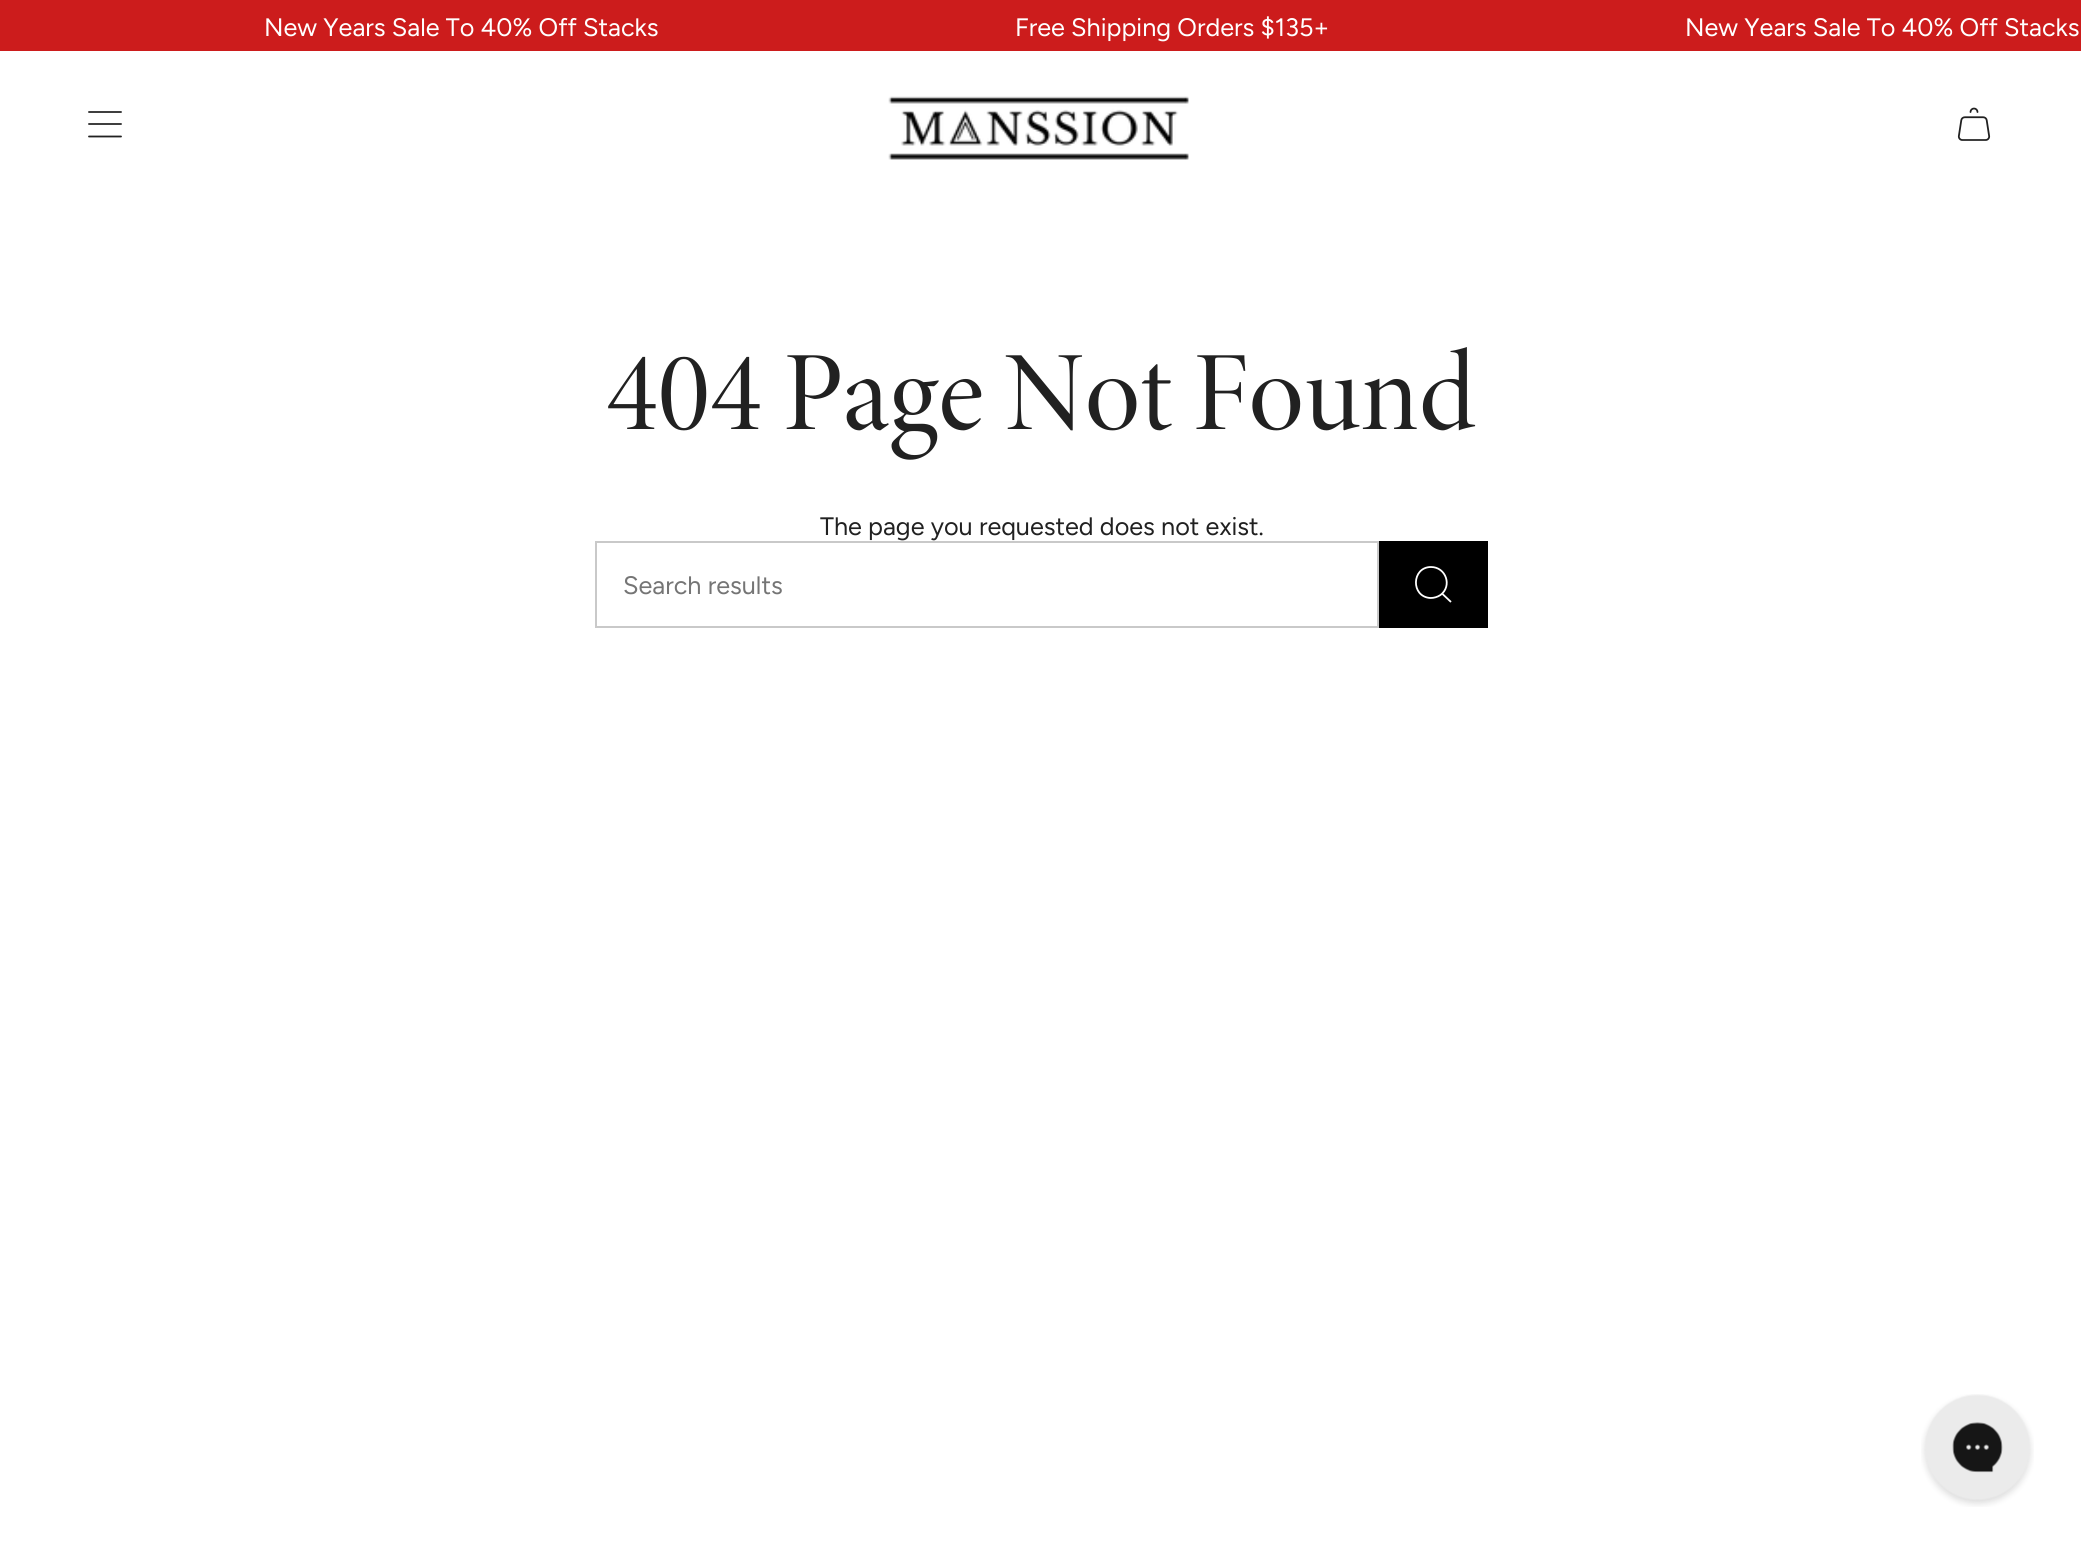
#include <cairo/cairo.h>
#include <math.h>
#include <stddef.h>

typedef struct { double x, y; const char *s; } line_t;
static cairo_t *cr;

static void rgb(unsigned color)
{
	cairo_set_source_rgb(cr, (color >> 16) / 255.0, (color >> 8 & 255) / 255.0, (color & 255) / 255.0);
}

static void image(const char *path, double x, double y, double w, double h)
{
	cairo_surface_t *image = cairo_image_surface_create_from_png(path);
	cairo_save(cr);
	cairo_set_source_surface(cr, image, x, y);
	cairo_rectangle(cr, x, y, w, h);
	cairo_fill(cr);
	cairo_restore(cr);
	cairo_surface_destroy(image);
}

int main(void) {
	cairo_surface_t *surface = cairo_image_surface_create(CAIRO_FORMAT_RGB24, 2081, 1546);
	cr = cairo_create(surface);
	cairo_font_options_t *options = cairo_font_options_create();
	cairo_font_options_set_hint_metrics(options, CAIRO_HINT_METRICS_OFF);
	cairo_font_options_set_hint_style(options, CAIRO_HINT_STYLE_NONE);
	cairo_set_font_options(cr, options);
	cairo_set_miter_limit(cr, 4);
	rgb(0xffffff);
	cairo_paint(cr);
	rgb(0xcc1c1c);
	cairo_rectangle(cr, 0, 0, 2081, 51);
	cairo_fill(cr);
	cairo_new_path(cr);
	cairo_move_to(cr, 89, 112);
	cairo_line_to(cr, 121, 112);
	cairo_move_to(cr, 89, 124);
	cairo_line_to(cr, 121, 124);
	cairo_move_to(cr, 89, 136.5);
	cairo_line_to(cr, 121, 136.5);
	rgb(0x212121);
	cairo_set_line_width(cr, 1.8);
	cairo_set_line_cap(cr, CAIRO_LINE_CAP_ROUND);
	cairo_set_line_join(cr, CAIRO_LINE_JOIN_ROUND);
	cairo_stroke(cr);
	image("img/1.png", 888, 96, 301, 64);
	image("img/2.png", 1957, 107, 34, 34);
	cairo_rectangle(cr, 596, 542, 782, 85);
	rgb(0xc9c9c9);
	cairo_set_line_width(cr, 2);
	cairo_set_line_cap(cr, CAIRO_LINE_CAP_BUTT);
	cairo_set_line_join(cr, CAIRO_LINE_JOIN_MITER);
	cairo_stroke(cr);
	rgb(0x000000);
	cairo_rectangle(cr, 1379, 541, 109, 87);
	cairo_fill(cr);
	cairo_new_path(cr);
	cairo_move_to(cr, 1431, 567);
	cairo_curve_to(cr, 1446, 567, 1452.5, 586, 1440.5, 595);
	cairo_curve_to(cr, 1437.5, 597, 1434, 598, 1430.5, 598);
	cairo_curve_to(cr, 1410.5, 597, 1411.5, 567, 1431, 567);
	cairo_close_path(cr);
	cairo_move_to(cr, 1442, 593.5);
	cairo_line_to(cr, 1451, 602);
	rgb(0xffffff);
	cairo_set_line_width(cr, 1.8);
	cairo_stroke(cr);
	image("img/3.png", 1921, 1394, 113, 113);
	cairo_select_font_face(cr, "Figtree", CAIRO_FONT_SLANT_NORMAL, CAIRO_FONT_WEIGHT_NORMAL);
	cairo_set_font_size(cr, 25.25);
	{
		static const line_t items[] = {
			{264, 36, "New Years Sale To 40% Off Stacks"},
			{1015, 36, "Free Shipping Orders $135+"},
			{1685, 36, "New Years Sale To 40% Off Stacks"},
		};
		for (size_t i = 0; i < sizeof items / sizeof *items; i++) {
			cairo_move_to(cr, items[i].x, items[i].y);
			cairo_show_text(cr, items[i].s);
		}
	}
	cairo_select_font_face(cr, "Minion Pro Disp", CAIRO_FONT_SLANT_NORMAL, CAIRO_FONT_WEIGHT_NORMAL);
	cairo_set_font_size(cr, 113.75);
	rgb(0x212121);
	cairo_move_to(cr, 606, 429);
	cairo_show_text(cr, "404 Page Not Found");
	cairo_select_font_face(cr, "Figtree", CAIRO_FONT_SLANT_NORMAL, CAIRO_FONT_WEIGHT_NORMAL);
	cairo_set_font_size(cr, 25.25);
	cairo_move_to(cr, 820, 535);
	cairo_show_text(cr, "The page you requested does not exist.");
	rgb(0x757575);
	cairo_move_to(cr, 623, 594);
	cairo_show_text(cr, "Search results");
	cairo_surface_write_to_png(surface, "page.png");
	cairo_font_options_destroy(options);
	cairo_destroy(cr);
	cairo_surface_destroy(surface);
	return 0;
}
